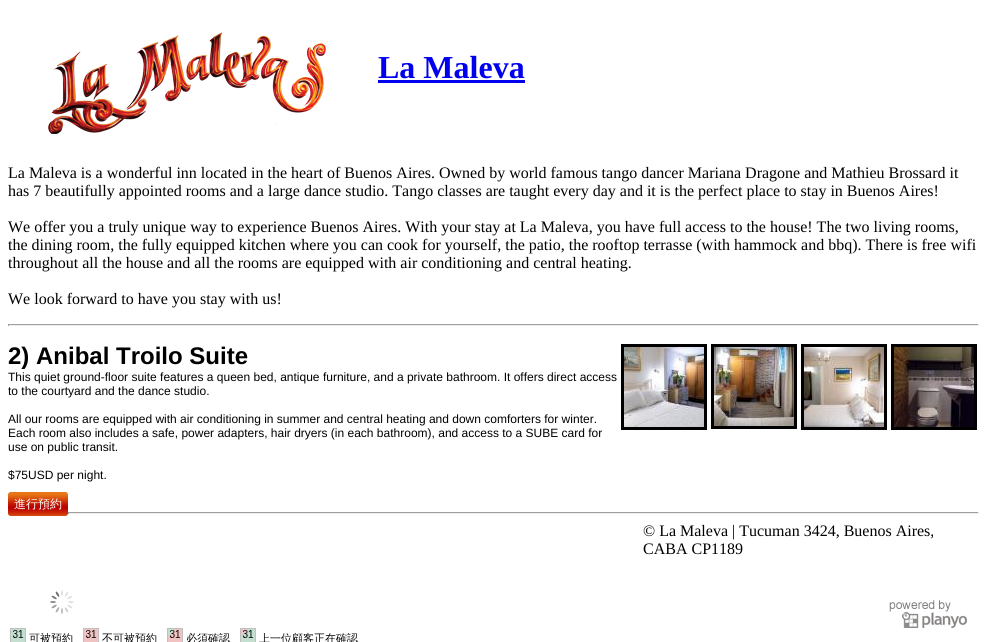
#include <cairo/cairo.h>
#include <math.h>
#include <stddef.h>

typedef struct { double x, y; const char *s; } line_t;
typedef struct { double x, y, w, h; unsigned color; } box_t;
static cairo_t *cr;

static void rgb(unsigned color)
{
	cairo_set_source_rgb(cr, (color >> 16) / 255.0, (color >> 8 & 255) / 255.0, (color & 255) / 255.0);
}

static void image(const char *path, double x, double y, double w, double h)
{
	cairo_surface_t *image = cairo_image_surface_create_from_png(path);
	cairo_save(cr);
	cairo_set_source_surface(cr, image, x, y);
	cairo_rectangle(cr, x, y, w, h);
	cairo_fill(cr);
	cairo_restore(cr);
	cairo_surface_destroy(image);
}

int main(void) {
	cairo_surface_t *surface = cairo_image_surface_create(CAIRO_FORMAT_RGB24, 987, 642);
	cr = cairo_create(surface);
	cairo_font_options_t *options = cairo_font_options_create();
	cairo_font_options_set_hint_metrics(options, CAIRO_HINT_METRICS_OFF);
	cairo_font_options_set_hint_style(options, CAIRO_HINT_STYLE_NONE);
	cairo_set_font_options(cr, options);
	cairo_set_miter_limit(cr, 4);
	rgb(0xffffff);
	cairo_paint(cr);
	image("img/1.png", 48, 32, 278, 102);
	{
		static const box_t items[] = {
			{378, 80, 147, 3, 0x0000ee},
			{8, 324, 971, 1, 0x9f9f9f},
			{978, 324, 1, 2, 0xeeeeee},
			{8, 325, 971, 1, 0xeeeeee},
			{8, 324, 1, 2, 0x9f9f9f},
			{621, 344, 86, 86, 0x000000},
		};
		for (size_t i = 0; i < sizeof items / sizeof *items; i++) {
			rgb(items[i].color);
			cairo_rectangle(cr, items[i].x, items[i].y, items[i].w, items[i].h);
			cairo_fill(cr);
		}
	}
	image("img/2.png", 624, 347, 80, 80);
	cairo_rectangle(cr, 711, 344, 86, 85);
	cairo_fill(cr);
	image("img/3.png", 714, 347, 80, 79);
	cairo_rectangle(cr, 801, 344, 86, 86);
	cairo_fill(cr);
	image("img/4.png", 804, 347, 80, 80);
	cairo_rectangle(cr, 891, 344, 86, 86);
	cairo_fill(cr);
	image("img/5.png", 894, 347, 80, 80);
	image("img/6.png", 8, 492, 60, 24);
	image("img/7.png", 10, 590, 348, 52);
	{
		static const box_t items[] = {
			{68, 512, 911, 1, 0x9f9f9f},
			{978, 512, 1, 2, 0xeeeeee},
			{68, 513, 911, 1, 0xeeeeee},
			{68, 512, 1, 2, 0x9f9f9f},
		};
		for (size_t i = 0; i < sizeof items / sizeof *items; i++) {
			rgb(items[i].color);
			cairo_rectangle(cr, items[i].x, items[i].y, items[i].w, items[i].h);
			cairo_fill(cr);
		}
	}
	image("img/8.png", 889, 600, 78, 28);
	cairo_select_font_face(cr, "Liberation Serif", CAIRO_FONT_SLANT_NORMAL, CAIRO_FONT_WEIGHT_BOLD);
	cairo_set_font_size(cr, 32);
	rgb(0x0000ee);
	cairo_move_to(cr, 378, 78);
	cairo_show_text(cr, "La Maleva");
	cairo_select_font_face(cr, "Liberation Serif", CAIRO_FONT_SLANT_NORMAL, CAIRO_FONT_WEIGHT_NORMAL);
	cairo_set_font_size(cr, 16);
	rgb(0x000000);
	{
		static const line_t items[] = {
			{8, 178, "La Maleva is a wonderful inn located in the heart of Buenos Aires. Owned by world famous tango dancer Mariana Dragone and Mathieu Brossard it"},
			{8, 196, "has 7 beautifully appointed rooms and a large dance studio. Tango classes are taught every day and it is the perfect place to stay in Buenos Aires!"},
			{8, 232, "We offer you a truly unique way to experience Buenos Aires. With your stay at La Maleva, you have full access to the house! The two living rooms,"},
			{8, 250, "the dining room, the fully equipped kitchen where you can cook for yourself, the patio, the rooftop terrasse (with hammock and bbq). There is free wifi"},
			{8, 268, "throughout all the house and all the rooms are equipped with air conditioning and central heating."},
			{8, 304, "We look forward to have you stay with us!"},
		};
		for (size_t i = 0; i < sizeof items / sizeof *items; i++) {
			cairo_move_to(cr, items[i].x, items[i].y);
			cairo_show_text(cr, items[i].s);
		}
	}
	cairo_select_font_face(cr, "Liberation Sans", CAIRO_FONT_SLANT_NORMAL, CAIRO_FONT_WEIGHT_BOLD);
	cairo_set_font_size(cr, 24);
	cairo_move_to(cr, 8, 364);
	cairo_show_text(cr, "2) Anibal Troilo Suite");
	cairo_select_font_face(cr, "Liberation Sans", CAIRO_FONT_SLANT_NORMAL, CAIRO_FONT_WEIGHT_NORMAL);
	cairo_set_font_size(cr, 12);
	{
		static const line_t items[] = {
			{8, 381, "This quiet ground-floor suite features a queen bed, antique furniture, and a private bathroom. It offers direct access"},
			{8, 395, "to the courtyard and the dance studio."},
			{8, 423, "All our rooms are equipped with air conditioning in summer and central heating and down comforters for winter."},
			{8, 437, "Each room also includes a safe, power adapters, hair dryers (in each bathroom), and access to a SUBE card for"},
			{8, 451, "use on public transit."},
			{8, 479, "$75USD per night."},
		};
		for (size_t i = 0; i < sizeof items / sizeof *items; i++) {
			cairo_move_to(cr, items[i].x, items[i].y);
			cairo_show_text(cr, items[i].s);
		}
	}
	cairo_select_font_face(cr, "WenQuanYi Zen Hei Medium", CAIRO_FONT_SLANT_NORMAL, CAIRO_FONT_WEIGHT_NORMAL);
	rgb(0xffffff);
	cairo_move_to(cr, 14, 508);
	cairo_show_text(cr, "進行預約");
	cairo_select_font_face(cr, "Liberation Serif", CAIRO_FONT_SLANT_NORMAL, CAIRO_FONT_WEIGHT_NORMAL);
	cairo_set_font_size(cr, 16);
	rgb(0x000000);
	cairo_move_to(cr, 643, 536);
	cairo_show_text(cr, "© La Maleva | Tucuman 3424, Buenos Aires,");
	cairo_move_to(cr, 643, 554);
	cairo_show_text(cr, "CABA CP1189");
	cairo_surface_write_to_png(surface, "page.png");
	cairo_font_options_destroy(options);
	cairo_destroy(cr);
	cairo_surface_destroy(surface);
	return 0;
}
